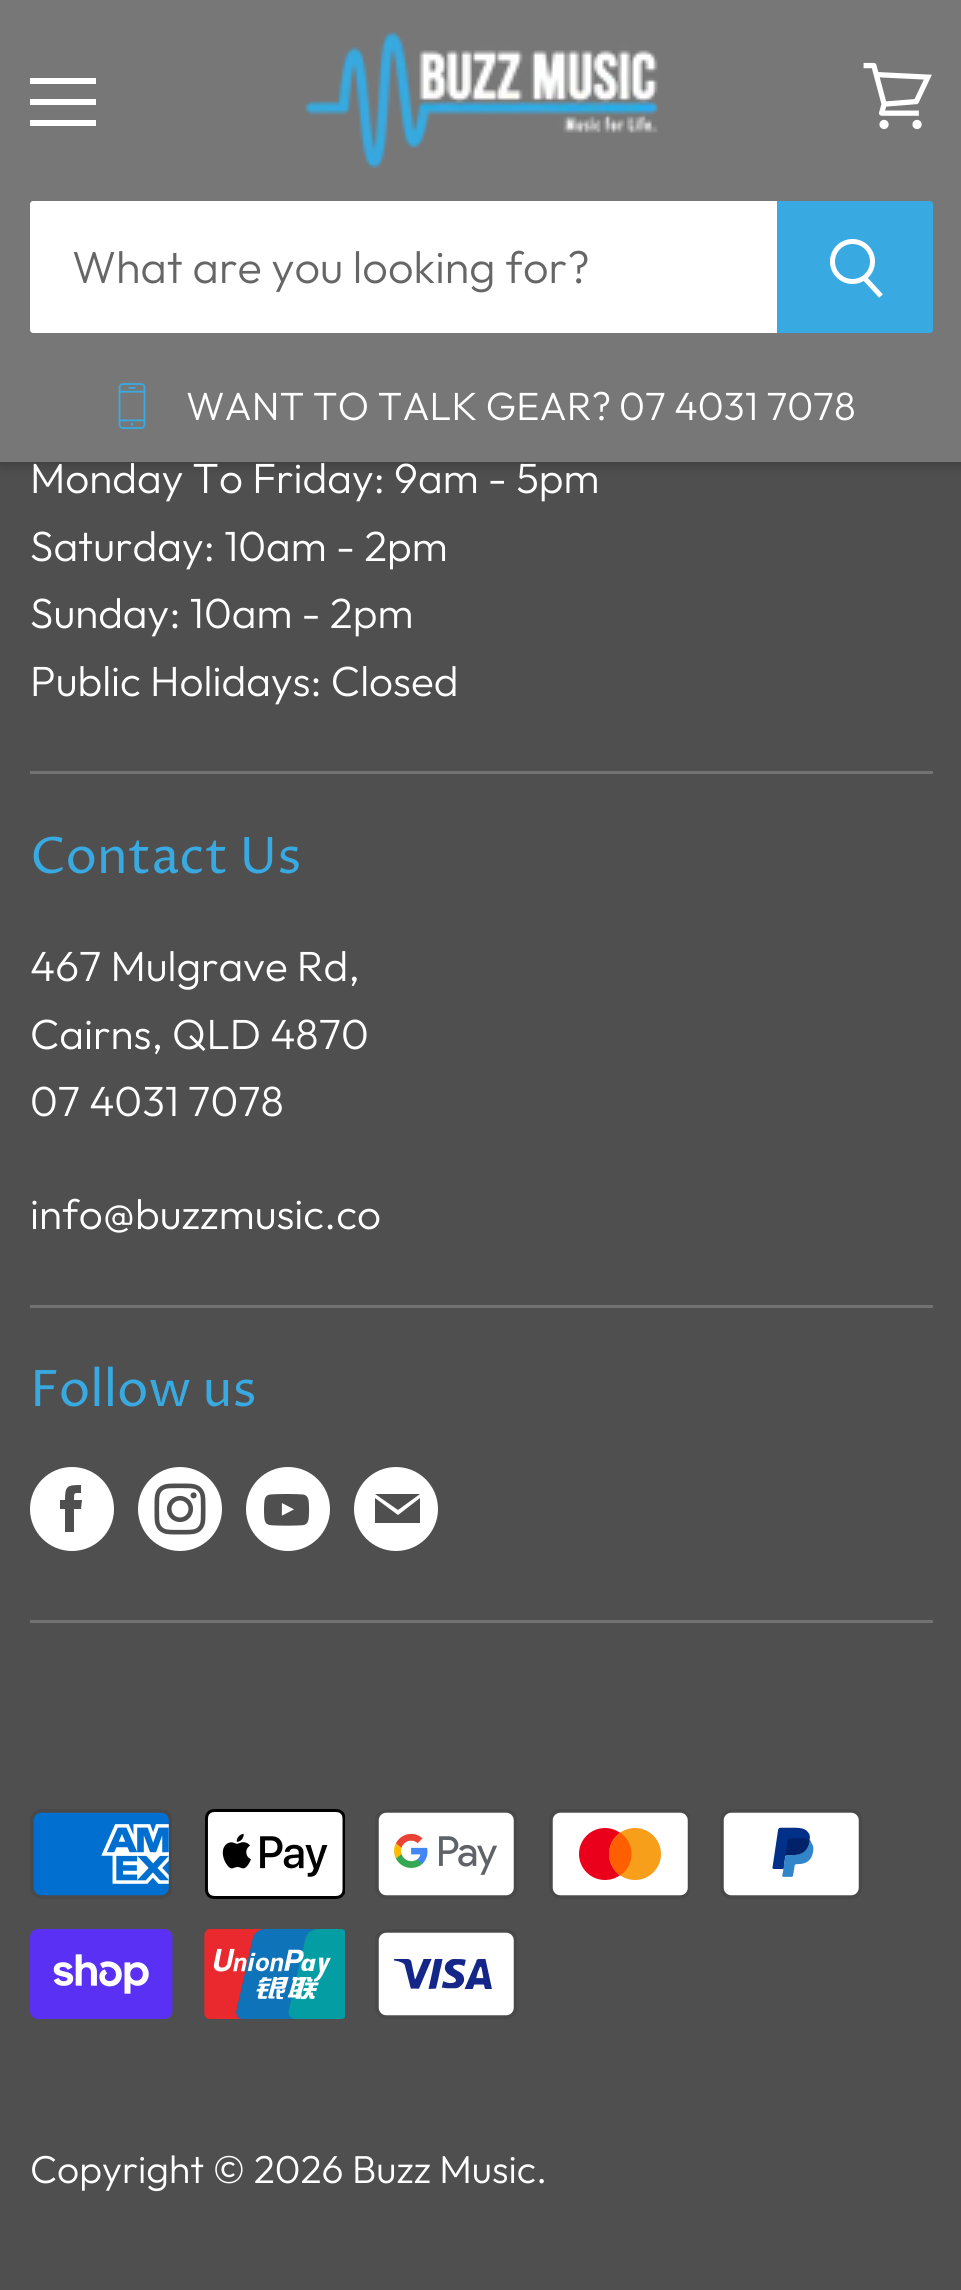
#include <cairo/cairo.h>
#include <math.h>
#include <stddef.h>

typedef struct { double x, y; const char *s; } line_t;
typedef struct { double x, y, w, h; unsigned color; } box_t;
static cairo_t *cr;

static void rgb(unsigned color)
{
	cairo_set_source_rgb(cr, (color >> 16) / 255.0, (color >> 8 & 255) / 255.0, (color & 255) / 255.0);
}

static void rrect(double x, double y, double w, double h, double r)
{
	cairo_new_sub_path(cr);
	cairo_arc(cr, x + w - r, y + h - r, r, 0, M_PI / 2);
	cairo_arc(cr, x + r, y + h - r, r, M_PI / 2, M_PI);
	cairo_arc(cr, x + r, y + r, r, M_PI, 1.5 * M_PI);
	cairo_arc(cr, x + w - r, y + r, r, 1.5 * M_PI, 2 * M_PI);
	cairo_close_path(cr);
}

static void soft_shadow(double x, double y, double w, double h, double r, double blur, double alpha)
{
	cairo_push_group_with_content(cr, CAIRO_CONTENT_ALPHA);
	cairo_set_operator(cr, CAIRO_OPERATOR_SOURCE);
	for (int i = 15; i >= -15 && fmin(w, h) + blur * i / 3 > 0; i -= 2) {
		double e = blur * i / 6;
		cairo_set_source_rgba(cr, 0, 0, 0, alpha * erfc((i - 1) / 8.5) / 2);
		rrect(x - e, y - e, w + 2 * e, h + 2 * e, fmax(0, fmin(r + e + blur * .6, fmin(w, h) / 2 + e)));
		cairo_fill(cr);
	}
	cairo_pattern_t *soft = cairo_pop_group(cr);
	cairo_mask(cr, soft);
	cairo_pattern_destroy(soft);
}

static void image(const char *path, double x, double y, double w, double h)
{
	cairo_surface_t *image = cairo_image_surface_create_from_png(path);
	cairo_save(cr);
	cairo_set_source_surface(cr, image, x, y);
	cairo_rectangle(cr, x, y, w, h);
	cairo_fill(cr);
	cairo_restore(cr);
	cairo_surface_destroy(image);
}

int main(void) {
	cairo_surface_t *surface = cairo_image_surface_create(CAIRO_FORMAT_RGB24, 961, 2290);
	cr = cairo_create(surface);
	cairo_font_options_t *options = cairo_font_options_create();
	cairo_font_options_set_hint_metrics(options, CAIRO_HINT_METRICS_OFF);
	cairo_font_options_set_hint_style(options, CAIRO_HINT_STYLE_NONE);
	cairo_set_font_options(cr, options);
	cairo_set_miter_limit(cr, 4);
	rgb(0x4f4f4f);
	cairo_paint(cr);
	rgb(0x000000);
	soft_shadow(0, 3, 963, 462, 0, 6, 0.25);
	{
		static const box_t items[] = {
			{0, 0, 961, 462, 0x777777},
			{30, 78, 66, 6, 0xffffff},
			{30, 99, 66, 6, 0xffffff},
			{30, 120, 66, 6, 0xffffff},
		};
		for (size_t i = 0; i < sizeof items / sizeof *items; i++) {
			rgb(items[i].color);
			cairo_rectangle(cr, items[i].x, items[i].y, items[i].w, items[i].h);
			cairo_fill(cr);
		}
	}
	image("img/1.png", 863, 62, 69, 68);
	image("img/2.png", 305, 32, 353, 136);
	cairo_new_path(cr);
	cairo_move_to(cr, 33, 201);
	cairo_line_to(cr, 777, 201);
	cairo_line_to(cr, 777, 333);
	cairo_line_to(cr, 33, 333);
	cairo_curve_to(cr, 31.5, 333, 30, 331.5, 30, 330);
	cairo_line_to(cr, 30, 204);
	cairo_curve_to(cr, 30, 202.5, 31.5, 201, 33, 201);
	cairo_close_path(cr);
	cairo_fill(cr);
	rgb(0x38aae1);
	cairo_new_path(cr);
	cairo_move_to(cr, 777, 201);
	cairo_line_to(cr, 930, 201);
	cairo_curve_to(cr, 931.5, 201, 933, 202.5, 933, 204);
	cairo_line_to(cr, 933, 330);
	cairo_curve_to(cr, 933, 331.5, 931.5, 333, 930, 333);
	cairo_line_to(cr, 777, 333);
	cairo_close_path(cr);
	cairo_fill(cr);
	cairo_new_path(cr);
	cairo_move_to(cr, 881, 296);
	cairo_line_to(cr, 864, 277.5);
	rgb(0xffffff);
	cairo_set_line_width(cr, 5);
	cairo_stroke(cr);
	cairo_arc(cr, 852.5, 261.5, 20, 0, 2 * M_PI);
	cairo_stroke(cr);
	image("img/3.png", 118, 383, 28, 46);
	{
		static const box_t items[] = {
			{30, 771, 903, 3, 0x727272},
			{30, 1305, 903, 3, 0x727272},
			{30, 1620, 903, 3, 0x727272},
		};
		for (size_t i = 0; i < sizeof items / sizeof *items; i++) {
			rgb(items[i].color);
			cairo_rectangle(cr, items[i].x, items[i].y, items[i].w, items[i].h);
			cairo_fill(cr);
		}
	}
	rgb(0xffffff);
	cairo_arc(cr, 72, 1509, 42, 0, 2 * M_PI);
	cairo_fill(cr);
	rgb(0x4f4f4f);
	cairo_set_fill_rule(cr, CAIRO_FILL_RULE_EVEN_ODD);
	cairo_new_path(cr);
	cairo_move_to(cr, 81, 1509);
	cairo_line_to(cr, 74, 1509);
	cairo_line_to(cr, 74, 1532);
	cairo_line_to(cr, 65, 1532);
	cairo_line_to(cr, 65, 1509);
	cairo_line_to(cr, 60, 1509);
	cairo_line_to(cr, 60, 1500);
	cairo_line_to(cr, 65, 1500);
	cairo_curve_to(cr, 65, 1486, 67, 1485, 81, 1485);
	cairo_line_to(cr, 81, 1493);
	cairo_curve_to(cr, 74, 1493, 74, 1492, 74, 1500);
	cairo_line_to(cr, 82, 1500);
	cairo_close_path(cr);
	cairo_fill(cr);
	rgb(0xffffff);
	cairo_arc(cr, 180, 1509, 42, 0, 2 * M_PI);
	cairo_fill(cr);
	image("img/4.png", 154, 1483, 52, 52);
	cairo_arc(cr, 288, 1509, 42, 0, 2 * M_PI);
	cairo_fill(cr);
	image("img/5.png", 264, 1494, 46, 32);
	cairo_arc(cr, 396, 1509, 42, 0, 2 * M_PI);
	cairo_fill(cr);
	rgb(0x4f4f4f);
	cairo_new_path(cr);
	cairo_move_to(cr, 420, 1494);
	cairo_line_to(cr, 375, 1494);
	cairo_line_to(cr, 398, 1510);
	cairo_close_path(cr);
	cairo_move_to(cr, 398, 1515);
	cairo_line_to(cr, 375, 1498);
	cairo_line_to(cr, 375, 1523);
	cairo_line_to(cr, 420, 1523);
	cairo_line_to(cr, 420, 1498);
	cairo_close_path(cr);
	cairo_fill(cr);
	image("img/6.png", 30, 1809, 142, 90);
	image("img/7.png", 205, 1809, 140, 90);
	image("img/8.png", 375, 1809, 142, 90);
	image("img/9.png", 549, 1809, 141, 90);
	image("img/10.png", 720, 1809, 142, 90);
	image("img/11.png", 30, 1929, 143, 90);
	image("img/12.png", 204, 1929, 141, 90);
	image("img/13.png", 375, 1929, 142, 90);
	cairo_select_font_face(cr, "Outfit Light", CAIRO_FONT_SLANT_NORMAL, CAIRO_FONT_WEIGHT_NORMAL);
	cairo_set_font_size(cr, 45);
	rgb(0x666666);
	cairo_move_to(cr, 72, 283);
	cairo_show_text(cr, "What are you looking for?");
	cairo_set_font_size(cr, 39.4);
	rgb(0xffffff);
	cairo_move_to(cr, 186, 420);
	cairo_show_text(cr, "WANT TO TALK GEAR?");
	cairo_move_to(cr, 619, 420);
	cairo_show_text(cr, "07 4031 7078");
	cairo_set_font_size(cr, 42.25);
	{
		static const line_t items[] = {
			{30, 493, "Monday To Friday: 9am - 5pm"},
			{30, 561, "Saturday: 10am - 2pm"},
			{30, 628, "Sunday: 10am - 2pm"},
			{30, 696, "Public Holidays: Closed"},
		};
		for (size_t i = 0; i < sizeof items / sizeof *items; i++) {
			cairo_move_to(cr, items[i].x, items[i].y);
			cairo_show_text(cr, items[i].s);
		}
	}
	cairo_select_font_face(cr, "Proza Libre", CAIRO_FONT_SLANT_NORMAL, CAIRO_FONT_WEIGHT_NORMAL);
	cairo_set_font_size(cr, 50.25);
	rgb(0x38aae1);
	cairo_move_to(cr, 30, 873);
	cairo_show_text(cr, "Contact Us");
	cairo_select_font_face(cr, "Outfit Light", CAIRO_FONT_SLANT_NORMAL, CAIRO_FONT_WEIGHT_NORMAL);
	cairo_set_font_size(cr, 42.25);
	rgb(0xffffff);
	{
		static const line_t items[] = {
			{30, 981, "467 Mulgrave Rd,"},
			{30, 1049, "Cairns, QLD 4870"},
			{30, 1116, "07 4031 7078"},
			{30, 1229, "info@buzzmusic.co"},
		};
		for (size_t i = 0; i < sizeof items / sizeof *items; i++) {
			cairo_move_to(cr, items[i].x, items[i].y);
			cairo_show_text(cr, items[i].s);
		}
	}
	cairo_select_font_face(cr, "Proza Libre", CAIRO_FONT_SLANT_NORMAL, CAIRO_FONT_WEIGHT_NORMAL);
	cairo_set_font_size(cr, 50.25);
	rgb(0x38aae1);
	cairo_move_to(cr, 30, 1406);
	cairo_show_text(cr, "Follow us");
	cairo_select_font_face(cr, "Outfit Light", CAIRO_FONT_SLANT_NORMAL, CAIRO_FONT_WEIGHT_NORMAL);
	cairo_set_font_size(cr, 39);
	rgb(0xffffff);
	cairo_move_to(cr, 30, 2183);
	cairo_show_text(cr, "Copyright © 2026 Buzz Music.");
	cairo_surface_write_to_png(surface, "page.png");
	cairo_font_options_destroy(options);
	cairo_destroy(cr);
	cairo_surface_destroy(surface);
	return 0;
}
